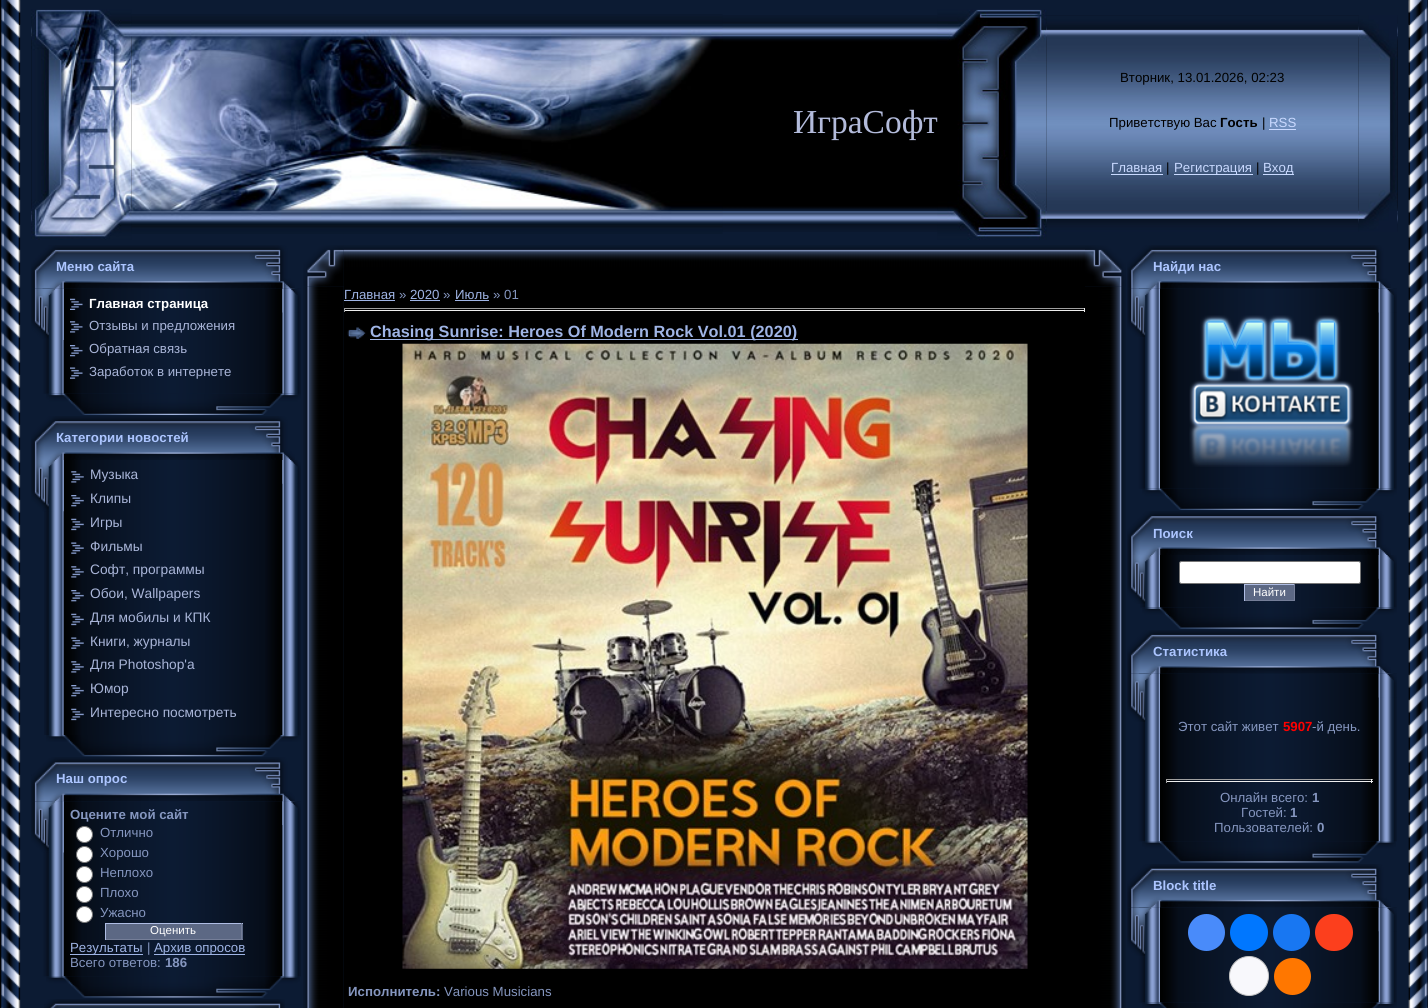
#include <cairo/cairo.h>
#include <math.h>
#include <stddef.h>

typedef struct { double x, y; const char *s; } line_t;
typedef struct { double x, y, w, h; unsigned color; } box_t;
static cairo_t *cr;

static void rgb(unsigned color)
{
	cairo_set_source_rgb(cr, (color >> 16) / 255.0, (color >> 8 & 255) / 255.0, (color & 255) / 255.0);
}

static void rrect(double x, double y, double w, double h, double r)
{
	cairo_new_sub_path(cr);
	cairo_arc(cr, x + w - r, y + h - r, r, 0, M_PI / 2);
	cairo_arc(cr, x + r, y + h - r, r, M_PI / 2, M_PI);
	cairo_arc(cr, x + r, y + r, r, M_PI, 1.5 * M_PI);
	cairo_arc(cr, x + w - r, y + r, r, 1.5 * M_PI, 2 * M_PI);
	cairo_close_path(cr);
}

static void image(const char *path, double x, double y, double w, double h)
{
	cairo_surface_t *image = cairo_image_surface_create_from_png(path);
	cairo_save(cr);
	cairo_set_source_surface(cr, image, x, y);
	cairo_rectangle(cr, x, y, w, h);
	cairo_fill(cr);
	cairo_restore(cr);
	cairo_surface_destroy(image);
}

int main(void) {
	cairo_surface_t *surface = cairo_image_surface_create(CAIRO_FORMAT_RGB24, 1428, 1008);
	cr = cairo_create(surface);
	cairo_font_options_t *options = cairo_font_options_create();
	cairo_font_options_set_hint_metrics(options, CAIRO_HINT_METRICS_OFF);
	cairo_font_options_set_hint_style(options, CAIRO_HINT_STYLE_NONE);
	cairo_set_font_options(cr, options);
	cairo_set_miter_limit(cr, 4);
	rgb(0x0c1b33);
	cairo_paint(cr);
	image("img/1.png", 0, 0, 21, 1008);
	image("img/2.png", 3, 0, 18, 25);
	image("img/3.png", 31, 15, 1367, 217);
	image("img/5.png", 131, 14, 592, 220);
	image("img/4.png", 31, 9, 101, 231);
	image("img/7.png", 1046, 16, 313, 216);
	{
		static const box_t items[] = {
			{1269, 129, 27, 1, 0xc9d9ff},
			{1111, 174, 52, 1, 0xc9d9ff},
			{1174, 174, 79, 1, 0xc9d9ff},
			{1263, 174, 31, 1, 0xc9d9ff},
		};
		for (size_t i = 0; i < sizeof items / sizeof *items; i++) {
			rgb(items[i].color);
			cairo_rectangle(cr, items[i].x, items[i].y, items[i].w, items[i].h);
			cairo_fill(cr);
		}
	}
	image("img/8.png", 1358, 15, 40, 217);
	image("img/9.png", 31, 245, 264, 44);
	image("img/10.png", 42, 288, 22, 106);
	image("img/12.png", 63, 288, 220, 106);
	image("img/11.png", 31, 288, 33, 52);
	image("img/13.png", 70, 298, 13, 12);
	image("img/14.png", 70, 321, 13, 12);
	image("img/15.png", 70, 345, 13, 12);
	image("img/16.png", 70, 367, 13, 12);
	image("img/17.png", 282, 288, 19, 106);
	image("img/18.png", 282, 288, 19, 25);
	image("img/19.png", 46, 393, 255, 22);
	image("img/20.png", 31, 416, 264, 44);
	image("img/21.png", 44, 460, 20, 275);
	image("img/23.png", 63, 460, 220, 275);
	image("img/22.png", 31, 460, 33, 52);
	image("img/24.png", 71, 471, 13, 12);
	image("img/25.png", 71, 495, 13, 12);
	image("img/26.png", 71, 518, 13, 13);
	image("img/27.png", 71, 542, 13, 12);
	image("img/24.png", 71, 566, 13, 12);
	image("img/25.png", 71, 590, 13, 12);
	image("img/26.png", 71, 613, 13, 13);
	image("img/27.png", 71, 637, 13, 12);
	image("img/24.png", 71, 661, 13, 12);
	image("img/25.png", 71, 685, 13, 12);
	image("img/26.png", 71, 708, 13, 13);
	image("img/28.png", 282, 460, 19, 275);
	image("img/29.png", 282, 460, 19, 24);
	image("img/30.png", 46, 735, 255, 22);
	image("img/31.png", 31, 757, 264, 45);
	image("img/32.png", 42, 801, 22, 176);
	image("img/34.png", 63, 801, 220, 176);
	image("img/33.png", 31, 801, 33, 52);
	rgb(0xffffff);
	cairo_arc(cr, 84.5, 834.5, 8, 0, 2 * M_PI);
	cairo_fill_preserve(cr);
	rgb(0x767676);
	cairo_set_line_width(cr, 1);
	cairo_stroke(cr);
	rgb(0xffffff);
	cairo_arc(cr, 84.5, 854.5, 8, 0, 2 * M_PI);
	cairo_fill_preserve(cr);
	rgb(0x767676);
	cairo_stroke(cr);
	rgb(0xffffff);
	cairo_arc(cr, 84.5, 874.5, 8, 0, 2 * M_PI);
	cairo_fill_preserve(cr);
	rgb(0x767676);
	cairo_stroke(cr);
	rgb(0xffffff);
	cairo_arc(cr, 84.5, 894.5, 8, 0, 2 * M_PI);
	cairo_fill_preserve(cr);
	rgb(0x767676);
	cairo_stroke(cr);
	rgb(0xffffff);
	cairo_arc(cr, 84.5, 914.5, 8, 0, 2 * M_PI);
	cairo_fill_preserve(cr);
	rgb(0x767676);
	cairo_stroke(cr);
	{
		static const box_t items[] = {
			{106, 924, 137, 15, 0x5c6884},
			{105, 923, 138, 1, 0xafbde4},
			{241, 923, 1, 17, 0x757e98},
			{105, 939, 138, 1, 0x757e98},
			{105, 923, 1, 17, 0xafbde4},
			{70, 954, 73, 1, 0x9fb4e5},
			{154, 954, 91, 1, 0x9fb4e5},
		};
		for (size_t i = 0; i < sizeof items / sizeof *items; i++) {
			rgb(items[i].color);
			cairo_rectangle(cr, items[i].x, items[i].y, items[i].w, items[i].h);
			cairo_fill(cr);
		}
	}
	image("img/35.png", 282, 801, 19, 176);
	image("img/36.png", 282, 801, 19, 24);
	image("img/37.png", 46, 976, 254, 22);
	image("img/38.png", 44, 999, 241, 9);
	image("img/40.png", 343, 245, 742, 42);
	image("img/42.png", 303, 286, 41, 722);
	image("img/39.png", 303, 245, 41, 42);
	image("img/45.png", 1085, 286, 41, 722);
	image("img/41.png", 1085, 245, 41, 42);
	{
		static const box_t items[] = {
			{344, 286, 741, 722, 0x000000},
			{344, 300, 51, 1, 0x9fb4e5},
			{410, 300, 30, 1, 0x9fb4e5},
			{455, 300, 34, 1, 0x9fb4e5},
			{344, 308, 741, 1, 0x9f9f9f},
			{1084, 308, 1, 4, 0xeeeeee},
			{344, 310, 741, 1, 0xeeeeee},
			{344, 308, 1, 4, 0x9f9f9f},
		};
		for (size_t i = 0; i < sizeof items / sizeof *items; i++) {
			rgb(items[i].color);
			cairo_rectangle(cr, items[i].x, items[i].y, items[i].w, items[i].h);
			cairo_fill(cr);
		}
	}
	image("img/43.png", 347, 327, 19, 12);
	rgb(0x9fb4e5);
	cairo_rectangle(cr, 370, 339, 428, 1);
	cairo_fill(cr);
	image("img/44.png", 402, 343, 626, 626);
	image("img/46.png", 1127, 245, 264, 44);
	image("img/47.png", 1138, 288, 22, 201);
	image("img/48.png", 1127, 288, 33, 49);
	image("img/49.png", 1160, 288, 219, 201);
	image("img/50.png", 1189, 315, 165, 152);
	image("img/51.png", 1378, 288, 19, 201);
	image("img/52.png", 1378, 288, 19, 25);
	image("img/53.png", 1142, 488, 255, 22);
	image("img/54.png", 1127, 511, 264, 44);
	image("img/55.png", 1140, 555, 20, 53);
	image("img/56.png", 1127, 555, 25, 49);
	image("img/57.png", 1160, 555, 219, 53);
	rgb(0xffffff);
	rrect(1179.5, 561.5, 181, 22, 2);
	cairo_fill_preserve(cr);
	rgb(0x767676);
	cairo_stroke(cr);
	{
		static const box_t items[] = {
			{1245, 585, 49, 15, 0x5c6884},
			{1244, 584, 51, 1, 0xafbde4},
			{1294, 584, 1, 17, 0x757e98},
			{1244, 600, 51, 1, 0x757e98},
			{1244, 584, 1, 17, 0xafbde4},
		};
		for (size_t i = 0; i < sizeof items / sizeof *items; i++) {
			rgb(items[i].color);
			cairo_rectangle(cr, items[i].x, items[i].y, items[i].w, items[i].h);
			cairo_fill(cr);
		}
	}
	image("img/58.png", 1378, 555, 19, 53);
	image("img/59.png", 1378, 555, 19, 24);
	image("img/60.png", 1142, 607, 255, 22);
	image("img/46.png", 1127, 630, 264, 44);
	image("img/61.png", 1138, 673, 22, 169);
	image("img/62.png", 1127, 673, 33, 49);
	image("img/63.png", 1160, 673, 219, 169);
	{
		static const box_t items[] = {
			{1166, 779, 207, 1, 0x9f9f9f},
			{1371, 779, 1, 4, 0xeeeeee},
			{1166, 781, 207, 1, 0xeeeeee},
			{1166, 779, 1, 4, 0x9f9f9f},
		};
		for (size_t i = 0; i < sizeof items / sizeof *items; i++) {
			rgb(items[i].color);
			cairo_rectangle(cr, items[i].x, items[i].y, items[i].w, items[i].h);
			cairo_fill(cr);
		}
	}
	image("img/64.png", 1378, 673, 19, 169);
	image("img/65.png", 1378, 673, 19, 25);
	image("img/66.png", 1142, 841, 254, 22);
	image("img/67.png", 1127, 864, 264, 44);
	image("img/68.png", 1138, 907, 22, 96);
	image("img/69.png", 1127, 907, 33, 49);
	image("img/70.png", 1160, 907, 219, 96);
	rgb(0x498bfa);
	cairo_arc(cr, 1206.5, 932.5, 18.5, 0, 2 * M_PI);
	cairo_fill(cr);
	rgb(0x0077ff);
	rrect(1230, 914, 38, 37, 18.5);
	cairo_fill(cr);
	rgb(0x1877f2);
	cairo_arc(cr, 1291.5, 932.5, 18.5, 0, 2 * M_PI);
	cairo_fill(cr);
	rgb(0xfc3f1d);
	rrect(1315, 914, 38, 37, 18.5);
	cairo_fill(cr);
	rgb(0xf8f8fc);
	cairo_arc(cr, 1249, 976, 19.5, 0, 2 * M_PI);
	cairo_fill_preserve(cr);
	rgb(0xc4c4c4);
	cairo_stroke(cr);
	rgb(0xff7700);
	cairo_arc(cr, 1292.5, 976.5, 18.5, 0, 2 * M_PI);
	cairo_fill(cr);
	image("img/71.png", 1378, 907, 19, 96);
	image("img/72.png", 1378, 907, 19, 25);
	image("img/73.png", 1142, 1002, 255, 6);
	image("img/74.png", 1408, 0, 20, 1008);
	image("img/75.png", 1408, 0, 18, 25);
	cairo_select_font_face(cr, "Liberation Serif", CAIRO_FONT_SLANT_NORMAL, CAIRO_FONT_WEIGHT_NORMAL);
	cairo_set_font_size(cr, 33.5);
	rgb(0xb3bbdb);
	cairo_move_to(cr, 793, 133);
	cairo_show_text(cr, "ИграСофт");
	image("img/6.png", 937, 9, 110, 231);
	cairo_select_font_face(cr, "Liberation Sans", CAIRO_FONT_SLANT_NORMAL, CAIRO_FONT_WEIGHT_NORMAL);
	cairo_set_font_size(cr, 13.25);
	rgb(0x000000);
	cairo_move_to(cr, 1120, 82);
	cairo_show_text(cr, "Вторник, 13.01.2026, 02:23");
	cairo_move_to(cr, 1109, 127);
	cairo_show_text(cr, "Приветствую Вас");
	cairo_select_font_face(cr, "Liberation Sans", CAIRO_FONT_SLANT_NORMAL, CAIRO_FONT_WEIGHT_BOLD);
	cairo_move_to(cr, 1220, 127);
	cairo_show_text(cr, "Гость");
	cairo_select_font_face(cr, "Liberation Sans", CAIRO_FONT_SLANT_NORMAL, CAIRO_FONT_WEIGHT_NORMAL);
	cairo_move_to(cr, 1262, 127);
	cairo_show_text(cr, "|");
	rgb(0xc9d9ff);
	cairo_move_to(cr, 1269, 127);
	cairo_show_text(cr, "RSS");
	cairo_move_to(cr, 1111, 172);
	cairo_show_text(cr, "Главная");
	rgb(0x000000);
	cairo_move_to(cr, 1166, 172);
	cairo_show_text(cr, "|");
	rgb(0xc9d9ff);
	cairo_move_to(cr, 1174, 172);
	cairo_show_text(cr, "Регистрация");
	rgb(0x000000);
	cairo_move_to(cr, 1256, 172);
	cairo_show_text(cr, "|");
	rgb(0xc9d9ff);
	cairo_move_to(cr, 1263, 172);
	cairo_show_text(cr, "Вход");
	cairo_select_font_face(cr, "Liberation Sans", CAIRO_FONT_SLANT_NORMAL, CAIRO_FONT_WEIGHT_BOLD);
	rgb(0xacc5ff);
	cairo_move_to(cr, 56, 271);
	cairo_show_text(cr, "Меню сайта");
	rgb(0xffffff);
	cairo_move_to(cr, 89, 308);
	cairo_show_text(cr, "Главная страница");
	cairo_select_font_face(cr, "Liberation Sans", CAIRO_FONT_SLANT_NORMAL, CAIRO_FONT_WEIGHT_NORMAL);
	rgb(0xa9b5d8);
	{
		static const line_t items[] = {
			{89, 330, "Отзывы и предложения"},
			{89, 353, "Обратная связь"},
			{89, 376, "Заработок в интернете"},
		};
		for (size_t i = 0; i < sizeof items / sizeof *items; i++) {
			cairo_move_to(cr, items[i].x, items[i].y);
			cairo_show_text(cr, items[i].s);
		}
	}
	cairo_select_font_face(cr, "Liberation Sans", CAIRO_FONT_SLANT_NORMAL, CAIRO_FONT_WEIGHT_BOLD);
	rgb(0xacc5ff);
	cairo_move_to(cr, 56, 442);
	cairo_show_text(cr, "Категории новостей");
	cairo_select_font_face(cr, "Liberation Sans", CAIRO_FONT_SLANT_NORMAL, CAIRO_FONT_WEIGHT_NORMAL);
	cairo_set_font_size(cr, 13.75);
	rgb(0xa9b5d8);
	{
		static const line_t items[] = {
			{90, 479, "Музыка"},
			{90, 503, "Клипы"},
			{90, 527, "Игры"},
			{90, 551, "Фильмы"},
			{90, 574, "Софт, программы"},
			{90, 598, "Обои, Wallpapers"},
			{90, 622, "Для мобилы и КПК"},
			{90, 646, "Книги, журналы"},
			{90, 669, "Для Photoshop'a"},
			{90, 693, "Юмор"},
			{90, 717, "Интересно посмотреть"},
		};
		for (size_t i = 0; i < sizeof items / sizeof *items; i++) {
			cairo_move_to(cr, items[i].x, items[i].y);
			cairo_show_text(cr, items[i].s);
		}
	}
	cairo_select_font_face(cr, "Liberation Sans", CAIRO_FONT_SLANT_NORMAL, CAIRO_FONT_WEIGHT_BOLD);
	cairo_set_font_size(cr, 13.25);
	rgb(0xacc5ff);
	cairo_move_to(cr, 56, 783);
	cairo_show_text(cr, "Наш опрос");
	rgb(0x8596bf);
	cairo_move_to(cr, 70, 819);
	cairo_show_text(cr, "Оцените мой сайт");
	cairo_select_font_face(cr, "Liberation Sans", CAIRO_FONT_SLANT_NORMAL, CAIRO_FONT_WEIGHT_NORMAL);
	{
		static const line_t items[] = {
			{100, 837, "Отлично"},
			{100, 857, "Хорошо"},
			{100, 877, "Неплохо"},
			{100, 897, "Плохо"},
			{100, 917, "Ужасно"},
		};
		for (size_t i = 0; i < sizeof items / sizeof *items; i++) {
			cairo_move_to(cr, items[i].x, items[i].y);
			cairo_show_text(cr, items[i].s);
		}
	}
	cairo_set_font_size(cr, 11.5);
	rgb(0xffffff);
	cairo_move_to(cr, 150, 934);
	cairo_show_text(cr, "Оценить");
	cairo_set_font_size(cr, 13.25);
	rgb(0x9fb4e5);
	cairo_move_to(cr, 70, 952);
	cairo_show_text(cr, "Результаты");
	rgb(0x8596bf);
	cairo_move_to(cr, 147, 952);
	cairo_show_text(cr, "|");
	rgb(0x9fb4e5);
	cairo_move_to(cr, 154, 952);
	cairo_show_text(cr, "Архив опросов");
	rgb(0x8596bf);
	cairo_move_to(cr, 70, 967);
	cairo_show_text(cr, "Всего ответов:");
	cairo_select_font_face(cr, "Liberation Sans", CAIRO_FONT_SLANT_NORMAL, CAIRO_FONT_WEIGHT_BOLD);
	cairo_move_to(cr, 165, 967);
	cairo_show_text(cr, "186");
	cairo_select_font_face(cr, "Liberation Sans", CAIRO_FONT_SLANT_NORMAL, CAIRO_FONT_WEIGHT_NORMAL);
	rgb(0x9fb4e5);
	cairo_move_to(cr, 344, 299);
	cairo_show_text(cr, "Главная");
	rgb(0x8596bf);
	cairo_move_to(cr, 399, 299);
	cairo_show_text(cr, "»");
	rgb(0x9fb4e5);
	cairo_move_to(cr, 410, 299);
	cairo_show_text(cr, "2020");
	rgb(0x8596bf);
	cairo_move_to(cr, 443, 299);
	cairo_show_text(cr, "»");
	rgb(0x9fb4e5);
	cairo_move_to(cr, 455, 299);
	cairo_show_text(cr, "Июль");
	rgb(0x8596bf);
	cairo_move_to(cr, 493, 299);
	cairo_show_text(cr, "» 01");
	cairo_select_font_face(cr, "Liberation Sans", CAIRO_FONT_SLANT_NORMAL, CAIRO_FONT_WEIGHT_BOLD);
	cairo_set_font_size(cr, 16.25);
	rgb(0x9fb4e5);
	cairo_move_to(cr, 370, 337);
	cairo_show_text(cr, "Chasing Sunrise: Heroes Of Modern Rock Vol.01 (2020)");
	cairo_set_font_size(cr, 13.25);
	rgb(0x8596bf);
	cairo_move_to(cr, 348, 996);
	cairo_show_text(cr, "Исполнитель:");
	cairo_select_font_face(cr, "Liberation Sans", CAIRO_FONT_SLANT_NORMAL, CAIRO_FONT_WEIGHT_NORMAL);
	cairo_move_to(cr, 444, 996);
	cairo_show_text(cr, "Various Musicians");
	cairo_select_font_face(cr, "Liberation Sans", CAIRO_FONT_SLANT_NORMAL, CAIRO_FONT_WEIGHT_BOLD);
	rgb(0xacc5ff);
	cairo_move_to(cr, 1153, 271);
	cairo_show_text(cr, "Найди нас");
	cairo_move_to(cr, 1153, 538);
	cairo_show_text(cr, "Поиск");
	cairo_select_font_face(cr, "Liberation Sans", CAIRO_FONT_SLANT_NORMAL, CAIRO_FONT_WEIGHT_NORMAL);
	cairo_set_font_size(cr, 11.5);
	rgb(0xffffff);
	cairo_move_to(cr, 1253, 596);
	cairo_show_text(cr, "Найти");
	cairo_select_font_face(cr, "Liberation Sans", CAIRO_FONT_SLANT_NORMAL, CAIRO_FONT_WEIGHT_BOLD);
	cairo_set_font_size(cr, 13.25);
	rgb(0xacc5ff);
	cairo_move_to(cr, 1153, 656);
	cairo_show_text(cr, "Статистика");
	cairo_select_font_face(cr, "Liberation Sans", CAIRO_FONT_SLANT_NORMAL, CAIRO_FONT_WEIGHT_NORMAL);
	rgb(0x8596bf);
	cairo_move_to(cr, 1178, 731);
	cairo_show_text(cr, "Этот сайт живет");
	cairo_select_font_face(cr, "Liberation Sans", CAIRO_FONT_SLANT_NORMAL, CAIRO_FONT_WEIGHT_BOLD);
	rgb(0xff0000);
	cairo_move_to(cr, 1283, 731);
	cairo_show_text(cr, "5907");
	cairo_select_font_face(cr, "Liberation Sans", CAIRO_FONT_SLANT_NORMAL, CAIRO_FONT_WEIGHT_NORMAL);
	rgb(0x8596bf);
	cairo_move_to(cr, 1312, 731);
	cairo_show_text(cr, "-й день.");
	cairo_move_to(cr, 1220, 802);
	cairo_show_text(cr, "Онлайн всего:");
	cairo_select_font_face(cr, "Liberation Sans", CAIRO_FONT_SLANT_NORMAL, CAIRO_FONT_WEIGHT_BOLD);
	cairo_move_to(cr, 1312, 802);
	cairo_show_text(cr, "1");
	cairo_select_font_face(cr, "Liberation Sans", CAIRO_FONT_SLANT_NORMAL, CAIRO_FONT_WEIGHT_NORMAL);
	cairo_move_to(cr, 1241, 817);
	cairo_show_text(cr, "Гостей:");
	cairo_select_font_face(cr, "Liberation Sans", CAIRO_FONT_SLANT_NORMAL, CAIRO_FONT_WEIGHT_BOLD);
	cairo_move_to(cr, 1290, 817);
	cairo_show_text(cr, "1");
	cairo_select_font_face(cr, "Liberation Sans", CAIRO_FONT_SLANT_NORMAL, CAIRO_FONT_WEIGHT_NORMAL);
	cairo_move_to(cr, 1214, 832);
	cairo_show_text(cr, "Пользователей:");
	cairo_select_font_face(cr, "Liberation Sans", CAIRO_FONT_SLANT_NORMAL, CAIRO_FONT_WEIGHT_BOLD);
	cairo_move_to(cr, 1317, 832);
	cairo_show_text(cr, "0");
	rgb(0xacc5ff);
	cairo_move_to(cr, 1153, 890);
	cairo_show_text(cr, "Block title");
	cairo_surface_write_to_png(surface, "page.png");
	cairo_font_options_destroy(options);
	cairo_destroy(cr);
	cairo_surface_destroy(surface);
	return 0;
}
